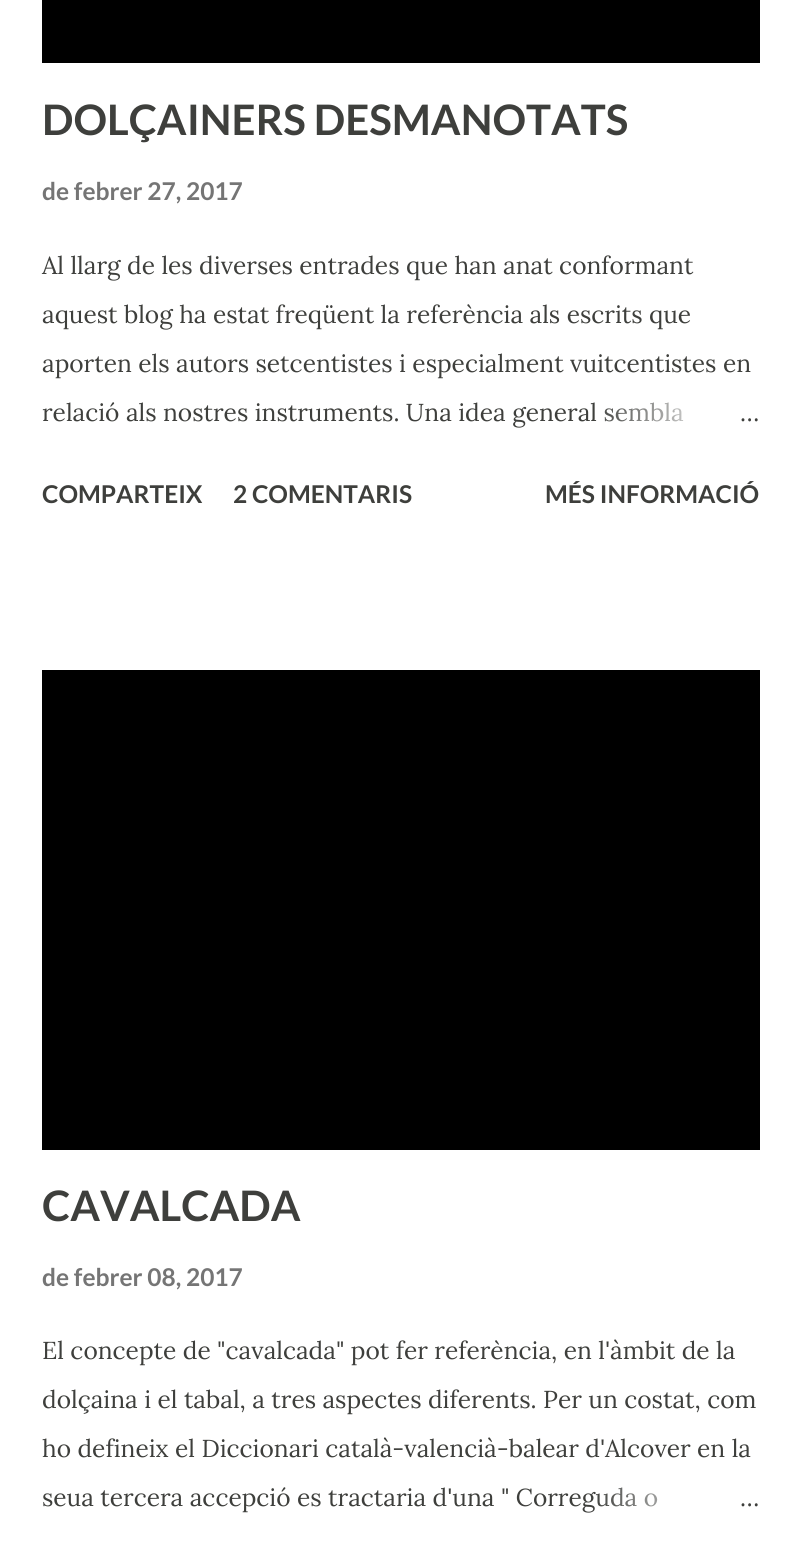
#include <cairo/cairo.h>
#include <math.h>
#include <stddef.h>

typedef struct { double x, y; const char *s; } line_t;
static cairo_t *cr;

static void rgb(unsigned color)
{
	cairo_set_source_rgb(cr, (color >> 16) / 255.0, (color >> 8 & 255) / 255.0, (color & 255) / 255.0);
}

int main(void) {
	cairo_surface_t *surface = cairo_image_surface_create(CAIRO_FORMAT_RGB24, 800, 1563);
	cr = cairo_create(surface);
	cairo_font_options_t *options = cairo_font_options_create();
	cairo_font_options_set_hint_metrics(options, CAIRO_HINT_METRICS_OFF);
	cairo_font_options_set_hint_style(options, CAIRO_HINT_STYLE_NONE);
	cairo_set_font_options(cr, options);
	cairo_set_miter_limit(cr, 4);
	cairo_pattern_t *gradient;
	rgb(0xffffff);
	cairo_paint(cr);
	rgb(0x000000);
	cairo_rectangle(cr, 42, 0, 718, 63);
	cairo_fill(cr);
	cairo_rectangle(cr, 42, 670, 718, 480);
	cairo_fill(cr);
	cairo_select_font_face(cr, "Lato", CAIRO_FONT_SLANT_NORMAL, CAIRO_FONT_WEIGHT_BOLD);
	cairo_set_font_size(cr, 42);
	rgb(0x3e3f3c);
	cairo_move_to(cr, 42, 135);
	cairo_show_text(cr, "DOLÇAINERS DESMANOTATS");
	cairo_set_font_size(cr, 24.5);
	rgb(0x757575);
	cairo_move_to(cr, 42, 200);
	cairo_show_text(cr, "de febrer 27, 2017");
	cairo_select_font_face(cr, "Lora", CAIRO_FONT_SLANT_NORMAL, CAIRO_FONT_WEIGHT_NORMAL);
	rgb(0x3e3f3c);
	{
		static const line_t items[] = {
			{42, 274, "Al llarg de les diverses entrades que han anat conformant"},
			{42, 323, "aquest blog ha estat freqüent la referència als escrits que"},
			{42, 372, "aporten els autors setcentistes i especialment vuitcentistes en"},
			{42, 421, "relació als nostres instruments. Una idea general sembla"},
		};
		for (size_t i = 0; i < sizeof items / sizeof *items; i++) {
			cairo_move_to(cr, items[i].x, items[i].y);
			cairo_show_text(cr, items[i].s);
		}
	}
	gradient = cairo_pattern_create_linear(760, 411, 592, 411);
	cairo_pattern_add_color_stop_rgba(gradient, 0, 1, 1, 1, 1);
	cairo_pattern_add_color_stop_rgba(gradient, 0.2, 1, 1, 1, 1);
	cairo_pattern_add_color_stop_rgba(gradient, 1, 1, 1, 1, 0);
	cairo_set_source(cr, gradient);
	cairo_pattern_destroy(gradient);
	cairo_rectangle(cr, 595, 402, 88, 20);
	cairo_fill(cr);
	rgb(0x3e3f3c);
	cairo_move_to(cr, 740, 421);
	cairo_show_text(cr, "…");
	cairo_select_font_face(cr, "Lato", CAIRO_FONT_SLANT_NORMAL, CAIRO_FONT_WEIGHT_BOLD);
	{
		static const line_t items[] = {
			{42, 503, "COMPARTEIX"},
			{233, 503, "2 COMENTARIS"},
			{545, 503, "MÉS INFORMACIÓ"},
		};
		for (size_t i = 0; i < sizeof items / sizeof *items; i++) {
			cairo_move_to(cr, items[i].x, items[i].y);
			cairo_show_text(cr, items[i].s);
		}
	}
	cairo_set_font_size(cr, 42);
	cairo_move_to(cr, 42, 1221);
	cairo_show_text(cr, "CAVALCADA");
	cairo_set_font_size(cr, 24.5);
	rgb(0x757575);
	cairo_move_to(cr, 42, 1286);
	cairo_show_text(cr, "de febrer 08, 2017");
	cairo_select_font_face(cr, "Lora", CAIRO_FONT_SLANT_NORMAL, CAIRO_FONT_WEIGHT_NORMAL);
	rgb(0x3e3f3c);
	{
		static const line_t items[] = {
			{42, 1359, "El concepte de \"cavalcada\" pot fer referència, en l'àmbit de la"},
			{42, 1408, "dolçaina i el tabal, a tres aspectes diferents. Per un costat, com"},
			{42, 1457, "ho defineix el Diccionari català-valencià-balear d'Alcover en la"},
			{42, 1506, "seua tercera accepció es tractaria d'una \" Correguda o"},
		};
		for (size_t i = 0; i < sizeof items / sizeof *items; i++) {
			cairo_move_to(cr, items[i].x, items[i].y);
			cairo_show_text(cr, items[i].s);
		}
	}
	gradient = cairo_pattern_create_linear(760, 1498, 592, 1498);
	cairo_pattern_add_color_stop_rgba(gradient, 0, 1, 1, 1, 1);
	cairo_pattern_add_color_stop_rgba(gradient, 0.2, 1, 1, 1, 1);
	cairo_pattern_add_color_stop_rgba(gradient, 1, 1, 1, 1, 0);
	cairo_set_source(cr, gradient);
	cairo_pattern_destroy(gradient);
	cairo_rectangle(cr, 595, 1487, 62, 20);
	cairo_fill(cr);
	rgb(0x3e3f3c);
	cairo_move_to(cr, 740, 1506);
	cairo_show_text(cr, "…");
	cairo_surface_write_to_png(surface, "page.png");
	cairo_font_options_destroy(options);
	cairo_destroy(cr);
	cairo_surface_destroy(surface);
	return 0;
}
